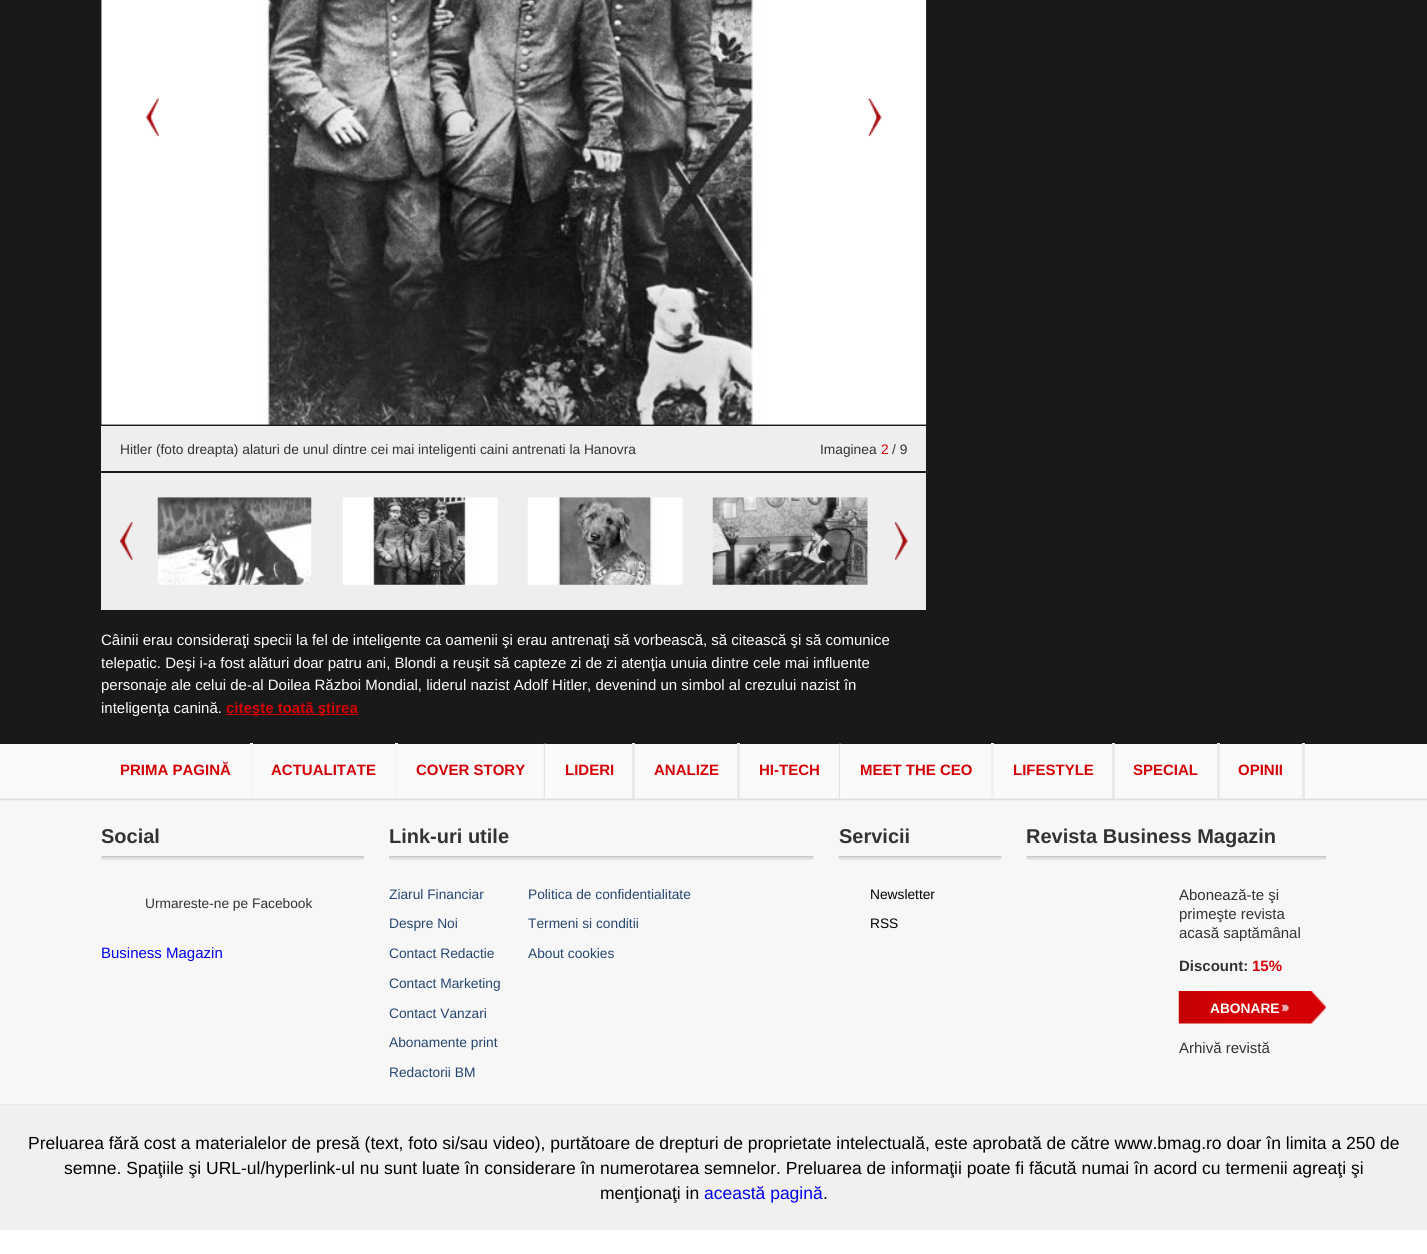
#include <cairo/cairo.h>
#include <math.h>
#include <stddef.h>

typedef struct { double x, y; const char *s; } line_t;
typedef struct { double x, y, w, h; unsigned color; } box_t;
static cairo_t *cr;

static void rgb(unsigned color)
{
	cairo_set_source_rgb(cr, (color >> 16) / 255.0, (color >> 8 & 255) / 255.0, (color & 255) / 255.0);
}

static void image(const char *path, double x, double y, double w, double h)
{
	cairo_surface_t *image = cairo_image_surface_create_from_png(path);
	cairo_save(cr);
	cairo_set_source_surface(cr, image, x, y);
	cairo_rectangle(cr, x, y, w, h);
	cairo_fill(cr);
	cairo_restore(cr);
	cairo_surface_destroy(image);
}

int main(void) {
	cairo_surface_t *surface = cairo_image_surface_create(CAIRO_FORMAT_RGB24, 1427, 1254);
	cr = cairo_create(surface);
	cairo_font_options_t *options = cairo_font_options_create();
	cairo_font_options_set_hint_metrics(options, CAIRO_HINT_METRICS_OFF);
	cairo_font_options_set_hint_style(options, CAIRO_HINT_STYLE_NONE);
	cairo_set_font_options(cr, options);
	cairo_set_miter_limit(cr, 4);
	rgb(0xffffff);
	cairo_paint(cr);
	rgb(0xf0f0f0);
	cairo_rectangle(cr, 0, 1104, 1427, 126);
	cairo_fill(cr);
	rgb(0x191919);
	cairo_rectangle(cr, 0, 0, 1427, 744);
	cairo_fill(cr);
	image("img/1.png", 101, 0, 826, 425);
	image("img/2.png", 146, 98, 13, 39);
	image("img/3.png", 868, 98, 14, 39);
	rgb(0xeeeeee);
	cairo_rectangle(cr, 101, 426, 825, 45);
	cairo_fill(cr);
	cairo_rectangle(cr, 101, 473, 825, 137);
	cairo_fill(cr);
	image("img/4.png", 120, 522, 13, 38);
	image("img/5.png", 157, 497, 155, 88);
	image("img/6.png", 342, 497, 156, 88);
	image("img/7.png", 527, 497, 156, 88);
	image("img/8.png", 712, 497, 156, 88);
	image("img/9.png", 895, 522, 13, 38);
	rgb(0xd50005);
	cairo_rectangle(cr, 226, 714, 132, 1);
	cairo_fill(cr);
	image("img/10.png", 0, 744, 1427, 361);
	rgb(0xf6f6f6);
	cairo_rectangle(cr, 250, 743, 3, 55);
	cairo_fill(cr);
	cairo_rectangle(cr, 395, 743, 3, 55);
	cairo_fill(cr);
	image("img/11.png", 543, 743, 4, 56);
	rgb(0xeaeaea);
	cairo_rectangle(cr, 632, 743, 3, 56);
	cairo_fill(cr);
	cairo_rectangle(cr, 737, 743, 3, 56);
	cairo_fill(cr);
	image("img/11.png", 838, 743, 4, 56);
	{
		static const box_t items[] = {
			{991, 743, 3, 55, 0xf1f1f1},
			{1112, 743, 3, 56, 0xeaeaea},
			{1217, 743, 3, 56, 0xeaeaea},
			{1302, 743, 3, 56, 0xeaeaea},
		};
		for (size_t i = 0; i < sizeof items / sizeof *items; i++) {
			rgb(items[i].color);
			cairo_rectangle(cr, items[i].x, items[i].y, items[i].w, items[i].h);
			cairo_fill(cr);
		}
	}
	image("img/12.png", 101, 856, 263, 4);
	image("img/13.png", 389, 856, 425, 4);
	image("img/14.png", 838, 856, 164, 4);
	image("img/15.png", 1026, 856, 300, 4);
	image("img/16.png", 1178, 991, 148, 33);
	cairo_select_font_face(cr, "Liberation Sans", CAIRO_FONT_SLANT_NORMAL, CAIRO_FONT_WEIGHT_NORMAL);
	cairo_set_font_size(cr, 13.75);
	rgb(0x333333);
	cairo_move_to(cr, 120, 454);
	cairo_show_text(cr, "Hitler (foto dreapta) alaturi de unul dintre cei mai inteligenti caini antrenati la Hanovra");
	cairo_move_to(cr, 820, 454);
	cairo_show_text(cr, "Imaginea");
	rgb(0xd50005);
	cairo_move_to(cr, 881, 454);
	cairo_show_text(cr, "2");
	rgb(0x333333);
	cairo_move_to(cr, 892, 454);
	cairo_show_text(cr, "/ 9");
	cairo_set_font_size(cr, 15);
	rgb(0xffffff);
	{
		static const line_t items[] = {
			{101, 645, "Câinii erau consideraţi specii la fel de inteligente ca oamenii şi erau antrenaţi să vorbească, să citească şi să comunice"},
			{101, 668, "telepatic. Deşi i-a fost alături doar patru ani, Blondi a reuşit să capteze zi de zi atenţia unuia dintre cele mai influente"},
			{101, 690, "personaje ale celui de-al Doilea Război Mondial, liderul nazist Adolf Hitler, devenind un simbol al crezului nazist în"},
			{101, 713, "inteligenţa canină."},
		};
		for (size_t i = 0; i < sizeof items / sizeof *items; i++) {
			cairo_move_to(cr, items[i].x, items[i].y);
			cairo_show_text(cr, items[i].s);
		}
	}
	cairo_select_font_face(cr, "Liberation Sans", CAIRO_FONT_SLANT_NORMAL, CAIRO_FONT_WEIGHT_BOLD);
	rgb(0xd50005);
	{
		static const line_t items[] = {
			{226, 713, "citeşte toată ştirea"},
			{120, 775, "PRIMA PAGINĂ"},
			{271, 775, "ACTUALITATE"},
			{416, 775, "COVER STORY"},
			{565, 775, "LIDERI"},
			{654, 775, "ANALIZE"},
			{759, 775, "HI-TECH"},
			{860, 775, "MEET THE CEO"},
			{1013, 775, "LIFESTYLE"},
			{1133, 775, "SPECIAL"},
			{1238, 775, "OPINII"},
		};
		for (size_t i = 0; i < sizeof items / sizeof *items; i++) {
			cairo_move_to(cr, items[i].x, items[i].y);
			cairo_show_text(cr, items[i].s);
		}
	}
	cairo_set_font_size(cr, 20);
	rgb(0x333333);
	cairo_move_to(cr, 101, 843);
	cairo_show_text(cr, "Social");
	cairo_select_font_face(cr, "Liberation Sans", CAIRO_FONT_SLANT_NORMAL, CAIRO_FONT_WEIGHT_NORMAL);
	cairo_set_font_size(cr, 13.75);
	cairo_move_to(cr, 145, 908);
	cairo_show_text(cr, "Urmareste-ne pe Facebook");
	cairo_set_font_size(cr, 15);
	rgb(0x0000ee);
	cairo_move_to(cr, 101, 958);
	cairo_show_text(cr, "Business Magazin");
	cairo_select_font_face(cr, "Liberation Sans", CAIRO_FONT_SLANT_NORMAL, CAIRO_FONT_WEIGHT_BOLD);
	cairo_set_font_size(cr, 20);
	rgb(0x333333);
	cairo_move_to(cr, 389, 843);
	cairo_show_text(cr, "Link-uri utile");
	cairo_select_font_face(cr, "Liberation Sans", CAIRO_FONT_SLANT_NORMAL, CAIRO_FONT_WEIGHT_NORMAL);
	cairo_set_font_size(cr, 13.75);
	rgb(0x25466f);
	{
		static const line_t items[] = {
			{389, 899, "Ziarul Financiar"},
			{389, 928, "Despre Noi"},
			{389, 958, "Contact Redactie"},
			{389, 988, "Contact Marketing"},
			{389, 1018, "Contact Vanzari"},
			{389, 1047, "Abonamente print"},
			{389, 1077, "Redactorii BM"},
			{528, 899, "Politica de confidentialitate"},
			{528, 928, "Termeni si conditii"},
			{528, 958, "About cookies"},
		};
		for (size_t i = 0; i < sizeof items / sizeof *items; i++) {
			cairo_move_to(cr, items[i].x, items[i].y);
			cairo_show_text(cr, items[i].s);
		}
	}
	cairo_select_font_face(cr, "Liberation Sans", CAIRO_FONT_SLANT_NORMAL, CAIRO_FONT_WEIGHT_BOLD);
	cairo_set_font_size(cr, 20);
	rgb(0x333333);
	cairo_move_to(cr, 839, 843);
	cairo_show_text(cr, "Servicii");
	cairo_select_font_face(cr, "Liberation Sans", CAIRO_FONT_SLANT_NORMAL, CAIRO_FONT_WEIGHT_NORMAL);
	cairo_set_font_size(cr, 13.75);
	rgb(0x000000);
	cairo_move_to(cr, 870, 899);
	cairo_show_text(cr, "Newsletter");
	cairo_move_to(cr, 870, 928);
	cairo_show_text(cr, "RSS");
	cairo_select_font_face(cr, "Liberation Sans", CAIRO_FONT_SLANT_NORMAL, CAIRO_FONT_WEIGHT_BOLD);
	cairo_set_font_size(cr, 20);
	rgb(0x333333);
	cairo_move_to(cr, 1026, 843);
	cairo_show_text(cr, "Revista Business Magazin");
	cairo_select_font_face(cr, "Liberation Sans", CAIRO_FONT_SLANT_NORMAL, CAIRO_FONT_WEIGHT_NORMAL);
	cairo_set_font_size(cr, 15);
	{
		static const line_t items[] = {
			{1179, 900, "Abonează-te şi"},
			{1179, 919, "primeşte revista"},
			{1179, 938, "acasă saptămânal"},
		};
		for (size_t i = 0; i < sizeof items / sizeof *items; i++) {
			cairo_move_to(cr, items[i].x, items[i].y);
			cairo_show_text(cr, items[i].s);
		}
	}
	cairo_select_font_face(cr, "Liberation Sans", CAIRO_FONT_SLANT_NORMAL, CAIRO_FONT_WEIGHT_BOLD);
	cairo_move_to(cr, 1179, 971);
	cairo_show_text(cr, "Discount:");
	rgb(0xd50005);
	cairo_move_to(cr, 1252, 971);
	cairo_show_text(cr, "15%");
	cairo_set_font_size(cr, 13.75);
	rgb(0xffffff);
	cairo_move_to(cr, 1210, 1013);
	cairo_show_text(cr, "ABONARE");
	cairo_select_font_face(cr, "Liberation Sans", CAIRO_FONT_SLANT_NORMAL, CAIRO_FONT_WEIGHT_NORMAL);
	cairo_set_font_size(cr, 15);
	rgb(0x333333);
	cairo_move_to(cr, 1179, 1053);
	cairo_show_text(cr, "Arhivă revistă");
	cairo_set_font_size(cr, 17.5);
	rgb(0x000000);
	{
		static const line_t items[] = {
			{28, 1149, "Preluarea fără cost a materialelor de presă (text, foto si/sau video), purtătoare de drepturi de proprietate intelectuală, este aprobată de către www.bmag.ro doar în limita a 250 de"},
			{64, 1174, "semne. Spaţiile şi URL-ul/hyperlink-ul nu sunt luate în considerare în numerotarea semnelor. Preluarea de informaţii poate fi făcută numai în acord cu termenii agreaţi şi"},
			{600, 1199, "menţionaţi in"},
		};
		for (size_t i = 0; i < sizeof items / sizeof *items; i++) {
			cairo_move_to(cr, items[i].x, items[i].y);
			cairo_show_text(cr, items[i].s);
		}
	}
	rgb(0x0000ee);
	cairo_move_to(cr, 704, 1199);
	cairo_show_text(cr, "această pagină");
	rgb(0x000000);
	cairo_move_to(cr, 823, 1199);
	cairo_show_text(cr, ".");
	cairo_surface_write_to_png(surface, "page.png");
	cairo_font_options_destroy(options);
	cairo_destroy(cr);
	cairo_surface_destroy(surface);
	return 0;
}
